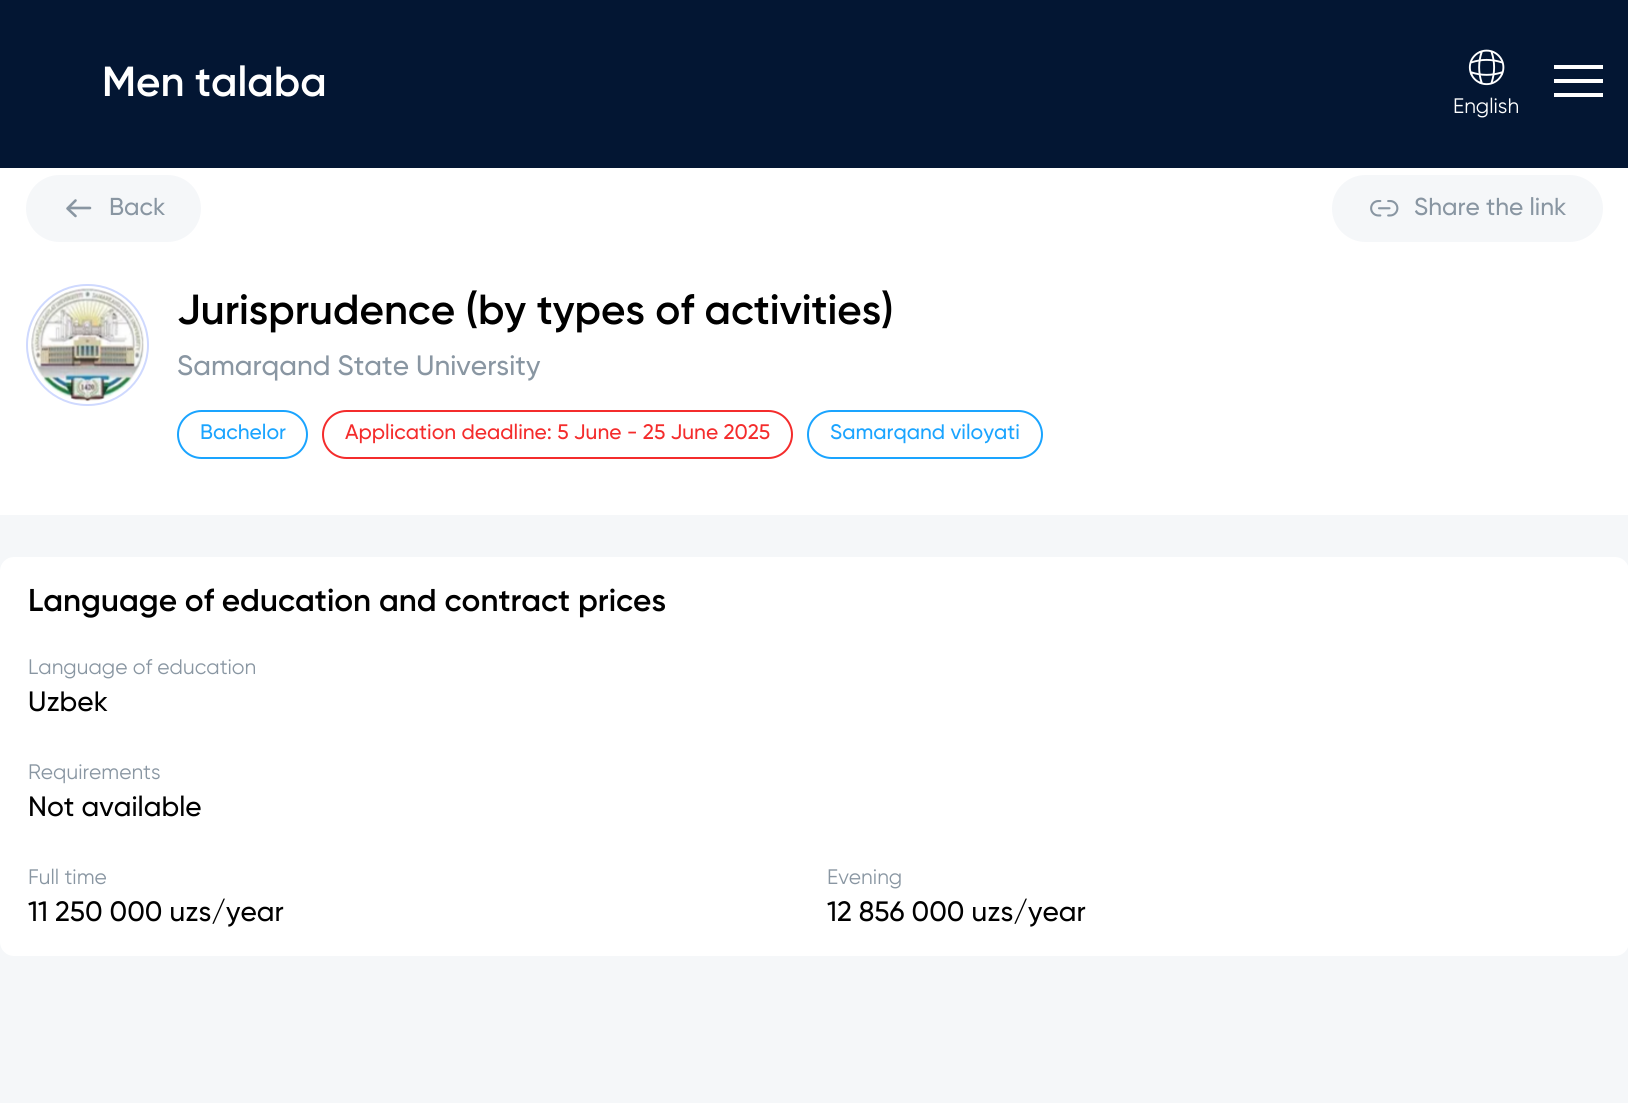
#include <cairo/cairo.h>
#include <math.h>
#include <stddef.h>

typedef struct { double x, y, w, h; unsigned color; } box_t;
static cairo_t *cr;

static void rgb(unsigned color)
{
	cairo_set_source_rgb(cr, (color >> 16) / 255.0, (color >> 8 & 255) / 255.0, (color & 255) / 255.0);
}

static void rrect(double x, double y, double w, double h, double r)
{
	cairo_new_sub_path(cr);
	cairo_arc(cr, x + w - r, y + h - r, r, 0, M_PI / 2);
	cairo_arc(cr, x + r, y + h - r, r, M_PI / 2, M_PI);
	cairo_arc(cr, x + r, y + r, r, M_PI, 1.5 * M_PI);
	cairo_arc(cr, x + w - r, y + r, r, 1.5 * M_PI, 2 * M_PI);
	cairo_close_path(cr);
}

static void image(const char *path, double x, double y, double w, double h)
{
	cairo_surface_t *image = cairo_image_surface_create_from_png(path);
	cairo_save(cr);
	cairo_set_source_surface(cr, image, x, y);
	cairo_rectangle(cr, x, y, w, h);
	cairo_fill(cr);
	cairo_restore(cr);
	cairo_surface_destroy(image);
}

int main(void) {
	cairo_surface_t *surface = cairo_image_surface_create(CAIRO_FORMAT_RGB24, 1628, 1103);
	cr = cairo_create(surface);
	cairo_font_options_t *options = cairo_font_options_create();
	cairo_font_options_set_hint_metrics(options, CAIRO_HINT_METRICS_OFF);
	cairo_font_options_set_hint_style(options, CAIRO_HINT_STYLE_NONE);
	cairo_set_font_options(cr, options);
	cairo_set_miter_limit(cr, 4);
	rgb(0xf5f7f9);
	cairo_paint(cr);
	{
		static const box_t items[] = {
			{0, 0, 1628, 168, 0x031633},
			{1554, 65, 49, 4, 0xffffff},
			{1554, 79, 49, 4, 0xffffff},
			{1554, 93, 49, 4, 0xffffff},
		};
		for (size_t i = 0; i < sizeof items / sizeof *items; i++) {
			rgb(items[i].color);
			cairo_rectangle(cr, items[i].x, items[i].y, items[i].w, items[i].h);
			cairo_fill(cr);
		}
	}
	image("img/1.png", 1468, 49, 37, 37);
	cairo_rectangle(cr, 0, 168, 1628, 347);
	cairo_fill(cr);
	rgb(0xf5f7f9);
	rrect(27, 176, 173, 65, 32.5);
	cairo_fill_preserve(cr);
	cairo_stroke(cr);
	cairo_new_path(cr);
	cairo_move_to(cr, 75.5, 200.5);
	cairo_line_to(cr, 67.5, 208.5);
	cairo_line_to(cr, 75.5, 216);
	cairo_move_to(cr, 90, 208);
	cairo_line_to(cr, 68, 208);
	rgb(0x8996a2);
	cairo_set_line_width(cr, 2.6);
	cairo_set_line_cap(cr, CAIRO_LINE_CAP_ROUND);
	cairo_set_line_join(cr, CAIRO_LINE_JOIN_ROUND);
	cairo_stroke(cr);
	rgb(0xf5f7f9);
	rrect(1333, 176, 269, 65, 32.5);
	cairo_fill_preserve(cr);
	cairo_set_line_width(cr, 2);
	cairo_set_line_cap(cr, CAIRO_LINE_CAP_BUTT);
	cairo_set_line_join(cr, CAIRO_LINE_JOIN_MITER);
	cairo_stroke(cr);
	image("img/2.png", 1370, 200, 29, 17);
	rrect(27, 285, 121, 120, 60);
	rgb(0xcfd9fe);
	cairo_stroke(cr);
	image("img/3.png", 31, 288, 113, 114);
	rrect(178, 411, 129, 47, 23.5);
	rgb(0x1aa4ff);
	cairo_stroke(cr);
	rrect(323, 411, 469, 47, 23.5);
	rgb(0xf42c2c);
	cairo_stroke(cr);
	rrect(808, 411, 234, 47, 23.5);
	rgb(0x1aa4ff);
	cairo_stroke(cr);
	rgb(0xffffff);
	rrect(0, 557, 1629, 399, 14);
	cairo_fill(cr);
	cairo_select_font_face(cr, "Gilroy SemiBold", CAIRO_FONT_SLANT_NORMAL, CAIRO_FONT_WEIGHT_NORMAL);
	cairo_set_font_size(cr, 42);
	cairo_move_to(cr, 102, 96);
	cairo_show_text(cr, "Men talaba");
	cairo_select_font_face(cr, "Gilroy", CAIRO_FONT_SLANT_NORMAL, CAIRO_FONT_WEIGHT_NORMAL);
	cairo_set_font_size(cr, 21);
	cairo_move_to(cr, 1453, 113);
	cairo_show_text(cr, "English");
	cairo_select_font_face(cr, "Gilroy Medium", CAIRO_FONT_SLANT_NORMAL, CAIRO_FONT_WEIGHT_NORMAL);
	cairo_set_font_size(cr, 24.5);
	rgb(0x8996a2);
	cairo_move_to(cr, 109, 215);
	cairo_show_text(cr, "Back");
	cairo_move_to(cr, 1414, 215);
	cairo_show_text(cr, "Share the link");
	cairo_select_font_face(cr, "Gilroy SemiBold", CAIRO_FONT_SLANT_NORMAL, CAIRO_FONT_WEIGHT_NORMAL);
	cairo_set_font_size(cr, 42);
	rgb(0x000000);
	cairo_move_to(cr, 177, 324);
	cairo_show_text(cr, "Jurisprudence (by types of activities)");
	cairo_select_font_face(cr, "Gilroy Medium", CAIRO_FONT_SLANT_NORMAL, CAIRO_FONT_WEIGHT_NORMAL);
	cairo_set_font_size(cr, 28);
	rgb(0x8996a2);
	cairo_move_to(cr, 177, 375);
	cairo_show_text(cr, "Samarqand State University");
	cairo_set_font_size(cr, 21);
	rgb(0x1aa4ff);
	cairo_move_to(cr, 200, 439);
	cairo_show_text(cr, "Bachelor");
	rgb(0xf42c2c);
	cairo_move_to(cr, 345, 439);
	cairo_show_text(cr, "Application deadline: 5 June - 25 June 2025");
	rgb(0x1aa4ff);
	cairo_move_to(cr, 830, 439);
	cairo_show_text(cr, "Samarqand viloyati");
	cairo_select_font_face(cr, "Gilroy SemiBold", CAIRO_FONT_SLANT_NORMAL, CAIRO_FONT_WEIGHT_NORMAL);
	cairo_set_font_size(cr, 31.5);
	rgb(0x000000);
	cairo_move_to(cr, 28, 611);
	cairo_show_text(cr, "Language of education and contract prices");
	cairo_select_font_face(cr, "Gilroy", CAIRO_FONT_SLANT_NORMAL, CAIRO_FONT_WEIGHT_NORMAL);
	cairo_set_font_size(cr, 21);
	rgb(0x8996a2);
	cairo_move_to(cr, 28, 674);
	cairo_show_text(cr, "Language of education");
	cairo_select_font_face(cr, "Gilroy Medium", CAIRO_FONT_SLANT_NORMAL, CAIRO_FONT_WEIGHT_NORMAL);
	cairo_set_font_size(cr, 28);
	rgb(0x000000);
	cairo_move_to(cr, 28, 711);
	cairo_show_text(cr, "Uzbek");
	cairo_select_font_face(cr, "Gilroy", CAIRO_FONT_SLANT_NORMAL, CAIRO_FONT_WEIGHT_NORMAL);
	cairo_set_font_size(cr, 21);
	rgb(0x8996a2);
	cairo_move_to(cr, 28, 779);
	cairo_show_text(cr, "Requirements");
	cairo_select_font_face(cr, "Gilroy Medium", CAIRO_FONT_SLANT_NORMAL, CAIRO_FONT_WEIGHT_NORMAL);
	cairo_set_font_size(cr, 28);
	rgb(0x000000);
	cairo_move_to(cr, 28, 816);
	cairo_show_text(cr, "Not available");
	cairo_select_font_face(cr, "Gilroy", CAIRO_FONT_SLANT_NORMAL, CAIRO_FONT_WEIGHT_NORMAL);
	cairo_set_font_size(cr, 21);
	rgb(0x8996a2);
	cairo_move_to(cr, 28, 884);
	cairo_show_text(cr, "Full time");
	cairo_select_font_face(cr, "Gilroy Medium", CAIRO_FONT_SLANT_NORMAL, CAIRO_FONT_WEIGHT_NORMAL);
	cairo_set_font_size(cr, 28);
	rgb(0x000000);
	cairo_move_to(cr, 28, 921);
	cairo_show_text(cr, "11 250 000 uzs/year");
	cairo_select_font_face(cr, "Gilroy", CAIRO_FONT_SLANT_NORMAL, CAIRO_FONT_WEIGHT_NORMAL);
	cairo_set_font_size(cr, 21);
	rgb(0x8996a2);
	cairo_move_to(cr, 827, 884);
	cairo_show_text(cr, "Evening");
	cairo_select_font_face(cr, "Gilroy Medium", CAIRO_FONT_SLANT_NORMAL, CAIRO_FONT_WEIGHT_NORMAL);
	cairo_set_font_size(cr, 28);
	rgb(0x000000);
	cairo_move_to(cr, 827, 921);
	cairo_show_text(cr, "12 856 000 uzs/year");
	cairo_surface_write_to_png(surface, "page.png");
	cairo_font_options_destroy(options);
	cairo_destroy(cr);
	cairo_surface_destroy(surface);
	return 0;
}
